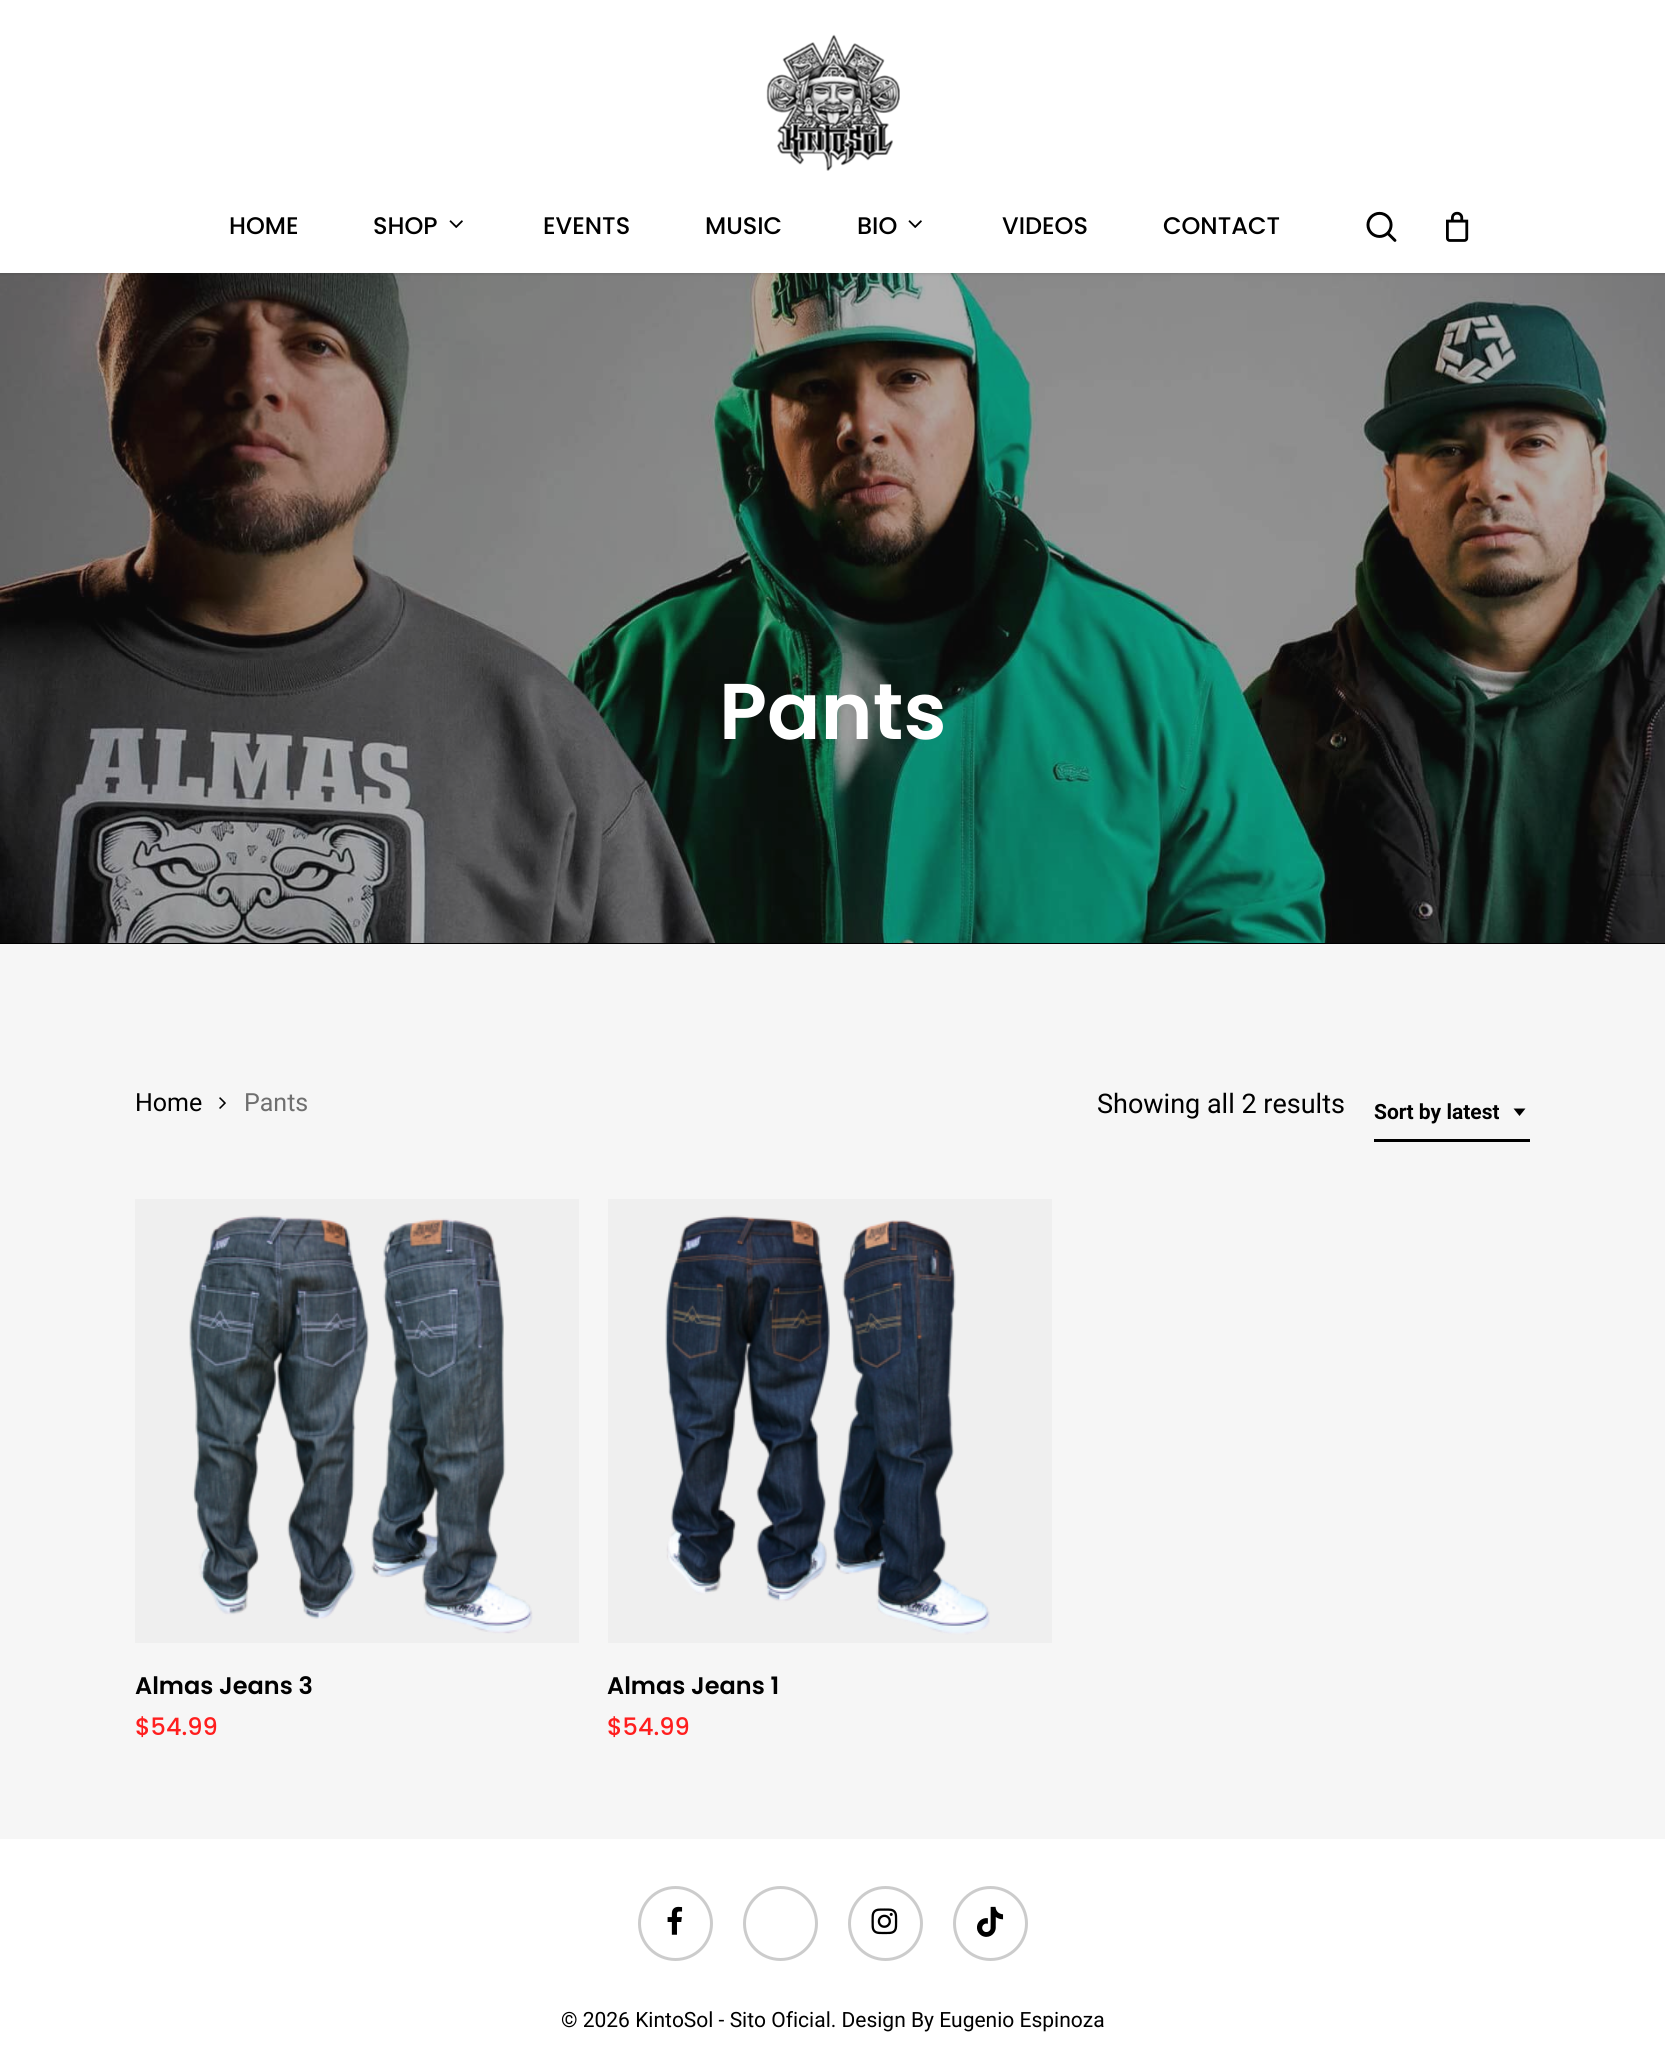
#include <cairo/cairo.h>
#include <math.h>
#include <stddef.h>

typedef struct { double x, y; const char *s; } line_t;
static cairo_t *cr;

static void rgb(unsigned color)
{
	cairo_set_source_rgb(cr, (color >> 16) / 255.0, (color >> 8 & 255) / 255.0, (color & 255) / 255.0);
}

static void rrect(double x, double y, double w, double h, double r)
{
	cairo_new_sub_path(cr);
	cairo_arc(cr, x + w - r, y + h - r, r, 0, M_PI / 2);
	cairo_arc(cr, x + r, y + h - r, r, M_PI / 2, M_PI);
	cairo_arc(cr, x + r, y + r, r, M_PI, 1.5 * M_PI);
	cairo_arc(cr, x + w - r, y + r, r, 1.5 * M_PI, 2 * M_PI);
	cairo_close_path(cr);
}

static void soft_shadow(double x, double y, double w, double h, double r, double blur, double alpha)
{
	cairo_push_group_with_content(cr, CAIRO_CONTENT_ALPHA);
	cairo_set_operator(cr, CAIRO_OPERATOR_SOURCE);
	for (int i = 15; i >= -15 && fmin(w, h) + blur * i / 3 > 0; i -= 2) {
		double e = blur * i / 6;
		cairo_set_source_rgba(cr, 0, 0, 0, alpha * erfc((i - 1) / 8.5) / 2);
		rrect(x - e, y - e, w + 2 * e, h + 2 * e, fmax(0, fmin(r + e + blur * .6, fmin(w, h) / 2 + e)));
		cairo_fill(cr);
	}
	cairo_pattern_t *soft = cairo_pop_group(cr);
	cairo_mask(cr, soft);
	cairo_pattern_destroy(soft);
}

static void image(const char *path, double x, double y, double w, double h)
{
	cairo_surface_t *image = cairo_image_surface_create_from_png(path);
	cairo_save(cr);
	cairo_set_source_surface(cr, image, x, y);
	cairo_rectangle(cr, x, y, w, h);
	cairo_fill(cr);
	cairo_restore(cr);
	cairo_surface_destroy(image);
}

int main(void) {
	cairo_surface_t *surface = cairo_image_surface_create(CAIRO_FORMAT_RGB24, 1665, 2048);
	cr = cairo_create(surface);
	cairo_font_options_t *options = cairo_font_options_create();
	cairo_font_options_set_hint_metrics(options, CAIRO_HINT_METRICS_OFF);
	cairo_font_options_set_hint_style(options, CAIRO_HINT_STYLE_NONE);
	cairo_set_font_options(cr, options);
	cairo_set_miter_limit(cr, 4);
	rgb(0xffffff);
	cairo_paint(cr);
	image("img/5.png", 0, 273, 1665, 670);
	rgb(0x000000);
	soft_shadow(0, -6, 1665, 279, 0, 2, 0.22);
	rgb(0xffffff);
	cairo_rectangle(cr, 0, 0, 1665, 273);
	cairo_fill(cr);
	image("img/1.png", 766, 34, 134, 137);
	image("img/2.png", 449, 220, 14, 8);
	image("img/2.png", 908, 220, 14, 8);
	image("img/3.png", 1366, 211, 31, 31);
	image("img/4.png", 1446, 211, 23, 31);
	rgb(0x000000);
	cairo_rectangle(cr, 0, 943, 1665, 1);
	cairo_fill(cr);
	rgb(0xf6f6f6);
	cairo_rectangle(cr, 0, 944, 1665, 895);
	cairo_fill(cr);
	image("img/6.png", 219, 1097, 7, 12);
	rgb(0x000000);
	cairo_rectangle(cr, 1374, 1139, 156, 3);
	cairo_fill(cr);
	cairo_new_path(cr);
	cairo_move_to(cr, 1513.5, 1108.5);
	cairo_line_to(cr, 1525.5, 1108.5);
	cairo_line_to(cr, 1519.5, 1116);
	cairo_close_path(cr);
	cairo_fill(cr);
	rgb(0xefefef);
	cairo_rectangle(cr, 135, 1199, 444, 444);
	cairo_fill(cr);
	image("img/7.png", 189, 1215, 344, 419);
	cairo_rectangle(cr, 608, 1199, 444, 444);
	cairo_fill(cr);
	image("img/8.png", 665, 1215, 325, 420);
	image("img/9.png", 667, 1906, 16, 29);
	cairo_arc(cr, 675.5, 1923.5, 36, 0, 2 * M_PI);
	rgb(0xcccccc);
	cairo_set_line_width(cr, 3);
	cairo_stroke(cr);
	cairo_arc(cr, 780.5, 1923.5, 36, 0, 2 * M_PI);
	cairo_stroke(cr);
	image("img/10.png", 871, 1908, 27, 27);
	cairo_arc(cr, 885.5, 1923.5, 36, 0, 2 * M_PI);
	cairo_stroke(cr);
	image("img/11.png", 977, 1906, 27, 31);
	cairo_arc(cr, 990.5, 1923.5, 36, 0, 2 * M_PI);
	cairo_stroke(cr);
	cairo_select_font_face(cr, "Poppins Medium", CAIRO_FONT_SLANT_NORMAL, CAIRO_FONT_WEIGHT_NORMAL);
	cairo_set_font_size(cr, 24);
	rgb(0x000000);
	{
		static const line_t items[] = {
			{229, 234, "HOME"},
			{373, 234, "SHOP"},
			{543, 234, "EVENTS"},
			{705, 234, "MUSIC"},
			{857, 234, "BIO"},
			{1002, 234, "VIDEOS"},
			{1163, 234, "CONTACT"},
		};
		for (size_t i = 0; i < sizeof items / sizeof *items; i++) {
			cairo_move_to(cr, items[i].x, items[i].y);
			cairo_show_text(cr, items[i].s);
		}
	}
	cairo_select_font_face(cr, "Poppins SemiBold", CAIRO_FONT_SLANT_NORMAL, CAIRO_FONT_WEIGHT_NORMAL);
	cairo_set_font_size(cr, 79);
	rgb(0xffffff);
	cairo_move_to(cr, 719, 739);
	cairo_show_text(cr, "Pants");
	cairo_select_font_face(cr, "Roboto", CAIRO_FONT_SLANT_NORMAL, CAIRO_FONT_WEIGHT_NORMAL);
	cairo_set_font_size(cr, 25);
	rgb(0x000000);
	cairo_move_to(cr, 135, 1111);
	cairo_show_text(cr, "Home");
	rgb(0x6f6f6f);
	cairo_move_to(cr, 244, 1111);
	cairo_show_text(cr, "Pants");
	cairo_set_font_size(cr, 27);
	rgb(0x000000);
	cairo_move_to(cr, 1097, 1113);
	cairo_show_text(cr, "Showing all 2 results");
	cairo_select_font_face(cr, "Roboto", CAIRO_FONT_SLANT_NORMAL, CAIRO_FONT_WEIGHT_BOLD);
	cairo_set_font_size(cr, 21);
	cairo_move_to(cr, 1374, 1119);
	cairo_show_text(cr, "Sort by latest");
	cairo_select_font_face(cr, "Poppins SemiBold", CAIRO_FONT_SLANT_NORMAL, CAIRO_FONT_WEIGHT_NORMAL);
	cairo_set_font_size(cr, 24);
	cairo_move_to(cr, 135, 1694);
	cairo_show_text(cr, "Almas Jeans 3");
	cairo_select_font_face(cr, "Poppins Medium", CAIRO_FONT_SLANT_NORMAL, CAIRO_FONT_WEIGHT_NORMAL);
	rgb(0xff1e1e);
	cairo_move_to(cr, 135, 1735);
	cairo_show_text(cr, "$54.99");
	cairo_select_font_face(cr, "Poppins SemiBold", CAIRO_FONT_SLANT_NORMAL, CAIRO_FONT_WEIGHT_NORMAL);
	rgb(0x000000);
	cairo_move_to(cr, 607, 1694);
	cairo_show_text(cr, "Almas Jeans 1");
	cairo_select_font_face(cr, "Poppins Medium", CAIRO_FONT_SLANT_NORMAL, CAIRO_FONT_WEIGHT_NORMAL);
	rgb(0xff1e1e);
	cairo_move_to(cr, 607, 1735);
	cairo_show_text(cr, "$54.99");
	cairo_select_font_face(cr, "Roboto", CAIRO_FONT_SLANT_NORMAL, CAIRO_FONT_WEIGHT_NORMAL);
	cairo_set_font_size(cr, 21);
	rgb(0x000000);
	cairo_move_to(cr, 561, 2027);
	cairo_show_text(cr, "© 2026 KintoSol - Sito Oficial. Design By Eugenio Espinoza");
	cairo_surface_write_to_png(surface, "page.png");
	cairo_font_options_destroy(options);
	cairo_destroy(cr);
	cairo_surface_destroy(surface);
	return 0;
}
